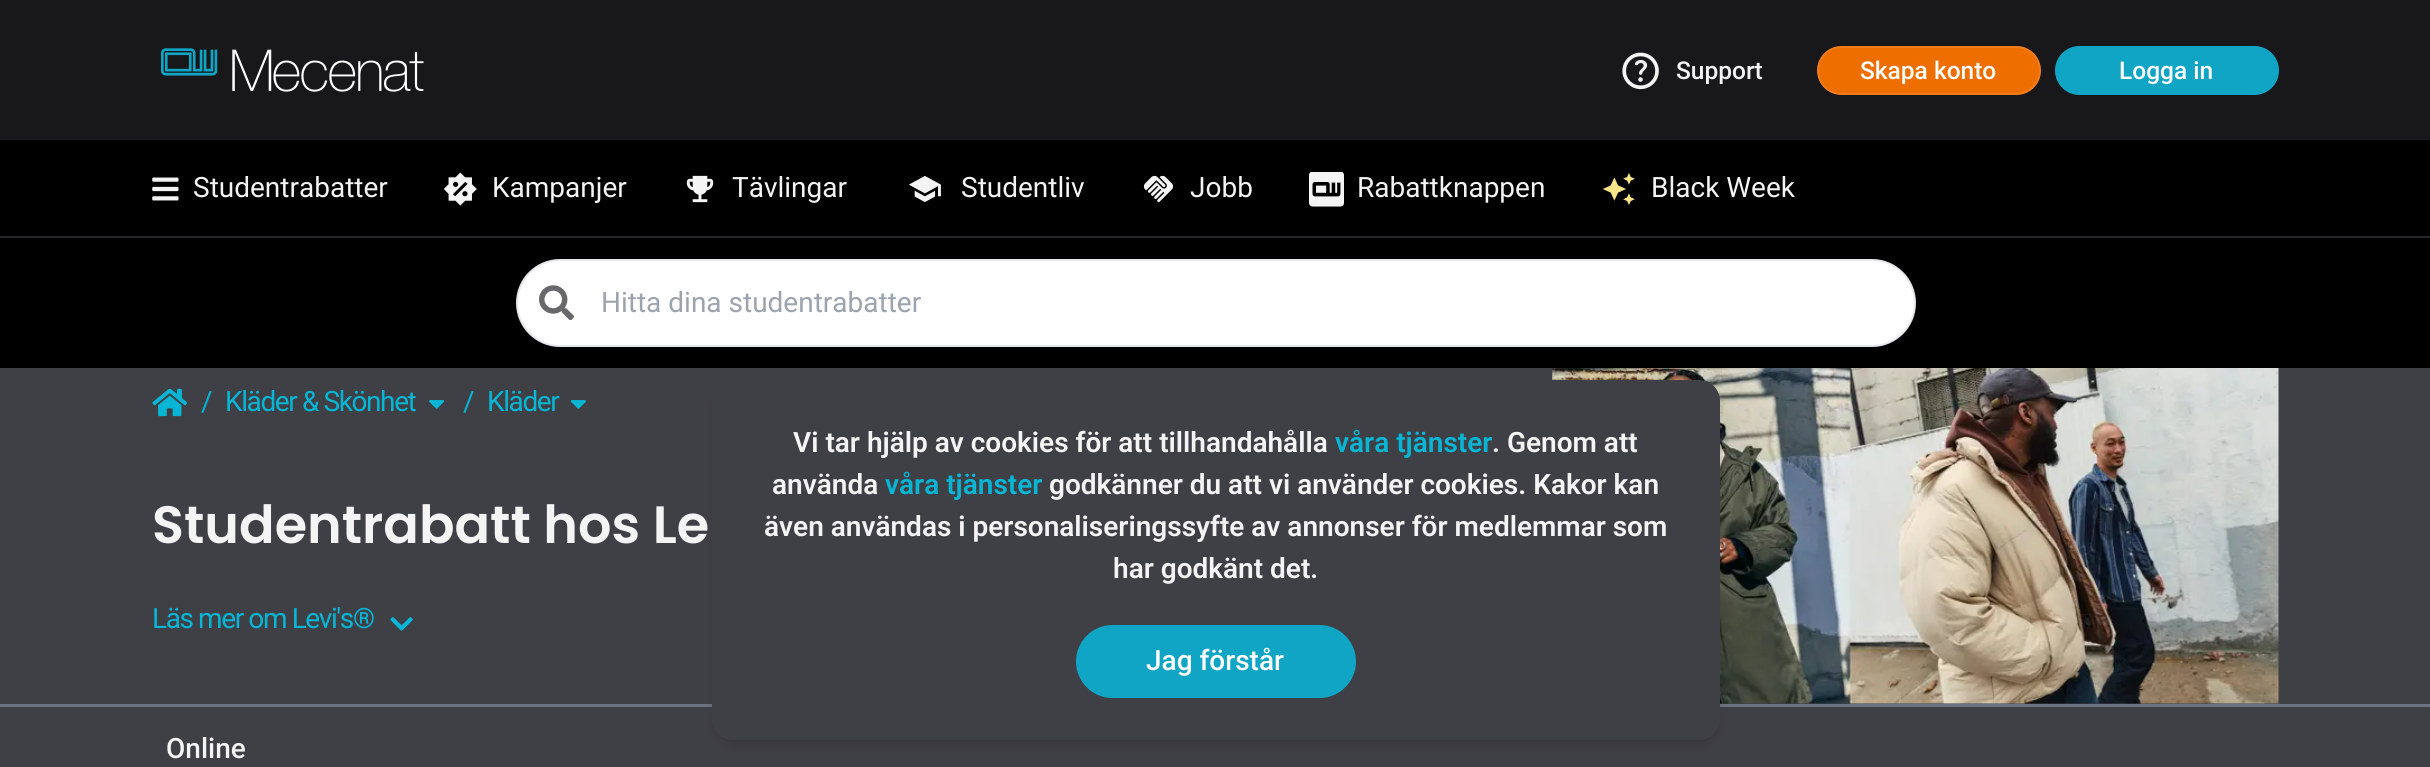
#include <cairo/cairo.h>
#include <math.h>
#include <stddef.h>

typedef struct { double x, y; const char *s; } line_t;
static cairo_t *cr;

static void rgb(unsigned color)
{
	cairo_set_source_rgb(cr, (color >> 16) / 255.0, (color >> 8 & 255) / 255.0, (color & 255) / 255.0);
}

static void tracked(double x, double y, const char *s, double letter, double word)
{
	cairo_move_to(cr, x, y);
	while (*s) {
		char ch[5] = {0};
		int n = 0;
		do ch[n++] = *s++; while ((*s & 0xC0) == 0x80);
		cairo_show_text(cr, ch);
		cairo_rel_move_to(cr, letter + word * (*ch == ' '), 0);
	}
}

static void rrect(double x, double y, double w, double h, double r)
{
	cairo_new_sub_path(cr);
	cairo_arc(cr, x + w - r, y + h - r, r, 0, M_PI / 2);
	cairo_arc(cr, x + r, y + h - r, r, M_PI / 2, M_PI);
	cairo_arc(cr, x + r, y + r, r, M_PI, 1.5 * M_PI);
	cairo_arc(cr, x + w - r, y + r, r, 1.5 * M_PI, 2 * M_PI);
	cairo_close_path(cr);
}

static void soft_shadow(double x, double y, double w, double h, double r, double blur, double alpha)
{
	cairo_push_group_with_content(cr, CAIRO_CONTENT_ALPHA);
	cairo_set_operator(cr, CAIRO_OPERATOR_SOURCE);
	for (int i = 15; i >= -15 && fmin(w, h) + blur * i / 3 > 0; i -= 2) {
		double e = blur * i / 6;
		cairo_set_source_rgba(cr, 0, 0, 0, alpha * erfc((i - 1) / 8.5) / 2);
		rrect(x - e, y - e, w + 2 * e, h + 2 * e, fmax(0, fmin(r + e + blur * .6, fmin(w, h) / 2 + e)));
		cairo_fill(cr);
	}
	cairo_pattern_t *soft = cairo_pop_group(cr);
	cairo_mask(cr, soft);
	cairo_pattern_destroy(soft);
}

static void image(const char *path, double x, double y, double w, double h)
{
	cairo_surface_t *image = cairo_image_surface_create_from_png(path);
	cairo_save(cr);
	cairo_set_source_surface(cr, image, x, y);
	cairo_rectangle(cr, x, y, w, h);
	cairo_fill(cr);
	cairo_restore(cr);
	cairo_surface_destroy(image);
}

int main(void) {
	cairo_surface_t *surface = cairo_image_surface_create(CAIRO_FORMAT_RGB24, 2430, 767);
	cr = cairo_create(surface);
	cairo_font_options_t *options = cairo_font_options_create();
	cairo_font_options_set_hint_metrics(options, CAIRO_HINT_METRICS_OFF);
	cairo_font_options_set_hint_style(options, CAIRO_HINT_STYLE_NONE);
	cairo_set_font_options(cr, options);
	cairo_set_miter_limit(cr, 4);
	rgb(0x18181b);
	cairo_paint(cr);
	image("img/1.png", 161, 48, 263, 44);
	image("img/2.png", 1622, 52, 37, 38);
	rgb(0xef6e00);
	rrect(1818, 47, 222, 47, 23.5);
	cairo_fill_preserve(cr);
	rgb(0xf17d1a);
	cairo_stroke(cr);
	rgb(0x10a5c5);
	rrect(2056, 47, 222, 47, 23.5);
	cairo_fill_preserve(cr);
	cairo_stroke(cr);
	rgb(0x000000);
	cairo_rectangle(cr, 0, 140, 2430, 96);
	cairo_fill(cr);
	rgb(0x27272a);
	cairo_rectangle(cr, 0, 236, 2430, 2);
	cairo_fill(cr);
	image("img/3.png", 152, 177, 27, 24);
	image("img/4.png", 443, 172, 34, 34);
	image("img/5.png", 686, 175, 28, 28);
	image("img/6.png", 909, 175, 32, 28);
	image("img/7.png", 1143, 175, 31, 28);
	image("img/8.png", 1309, 172, 35, 35);
	image("img/9.png", 1603, 173, 32, 32);
	rgb(0x000000);
	cairo_rectangle(cr, 0, 238, 2430, 130);
	cairo_fill(cr);
	rgb(0xffffff);
	rrect(517, 260, 1398, 86, 43);
	cairo_fill_preserve(cr);
	rgb(0xe5e7eb);
	cairo_stroke(cr);
	image("img/10.png", 539, 285, 35, 35);
	rgb(0x3f3f46);
	cairo_rectangle(cr, 0, 368, 2430, 336);
	cairo_fill(cr);
	rgb(0x6b7280);
	cairo_rectangle(cr, 0, 704, 2430, 3);
	cairo_fill(cr);
	image("img/11.png", 152, 388, 35, 29);
	image("img/12.png", 429, 400, 16, 9);
	image("img/13.png", 570, 400, 16, 9);
	image("img/14.png", 390, 617, 23, 14);
	image("img/15.png", 1552, 368, 727, 336);
	rgb(0x3f3f46);
	cairo_rectangle(cr, 0, 707, 2430, 60);
	cairo_fill(cr);
	rgb(0x000000);
	soft_shadow(716, 387, 1001, 353, 18, 3.5, 0.1);
	soft_shadow(714, 389, 1005, 357, 19, 5, 0.1);
	rgb(0x3f3f46);
	rrect(712, 380, 1008, 360, 21);
	cairo_fill(cr);
	rgb(0x10a5c5);
	rrect(1077, 626, 278, 71, 35.5);
	cairo_fill_preserve(cr);
	cairo_stroke(cr);
	cairo_select_font_face(cr, "Roboto Medium", CAIRO_FONT_SLANT_NORMAL, CAIRO_FONT_WEIGHT_NORMAL);
	cairo_set_font_size(cr, 24.5);
	rgb(0xf4f4f5);
	cairo_move_to(cr, 1676, 79);
	cairo_show_text(cr, "Support");
	rgb(0xffffff);
	cairo_move_to(cr, 1860, 79);
	cairo_show_text(cr, "Skapa konto");
	cairo_move_to(cr, 2119, 79);
	cairo_show_text(cr, "Logga in");
	cairo_select_font_face(cr, "Roboto", CAIRO_FONT_SLANT_NORMAL, CAIRO_FONT_WEIGHT_NORMAL);
	cairo_set_font_size(cr, 28);
	rgb(0xf4f4f5);
	{
		static const line_t items[] = {
			{193, 197, "Studentrabatter"},
			{492, 197, "Kampanjer"},
			{732, 197, "Tävlingar"},
			{961, 197, "Studentliv"},
			{1190, 197, "Jobb"},
			{1357, 197, "Rabattknappen"},
			{1651, 197, "Black Week"},
		};
		for (size_t i = 0; i < sizeof items / sizeof *items; i++) {
			cairo_move_to(cr, items[i].x, items[i].y);
			cairo_show_text(cr, items[i].s);
		}
	}
	rgb(0x9ca3af);
	cairo_move_to(cr, 601, 312);
	cairo_show_text(cr, "Hitta dina studentrabatter");
	rgb(0x06b6d4);
	{
		static const line_t items[] = {
			{201, 411, "/"},
			{225, 411, "Kläder & Skönhet"},
			{463, 411, "/"},
			{487, 411, "Kläder"},
		};
		for (size_t i = 0; i < sizeof items / sizeof *items; i++) {
			tracked(items[i].x, items[i].y, items[i].s, -1.4, 0);
		}
	}
	cairo_select_font_face(cr, "Poppins SemiBold", CAIRO_FONT_SLANT_NORMAL, CAIRO_FONT_WEIGHT_NORMAL);
	cairo_set_font_size(cr, 52.5);
	rgb(0xf4f4f5);
	cairo_move_to(cr, 152, 543);
	cairo_show_text(cr, "Studentrabatt hos Le");
	cairo_select_font_face(cr, "Roboto", CAIRO_FONT_SLANT_NORMAL, CAIRO_FONT_WEIGHT_NORMAL);
	cairo_set_font_size(cr, 28);
	rgb(0x06b6d4);
	tracked(152, 628, "Läs mer om Levi's®", -1.4, 0);
	cairo_select_font_face(cr, "Roboto Medium", CAIRO_FONT_SLANT_NORMAL, CAIRO_FONT_WEIGHT_NORMAL);
	rgb(0xf4f4f5);
	cairo_move_to(cr, 166, 758);
	cairo_show_text(cr, "Online");
	cairo_select_font_face(cr, "Roboto SemiBold", CAIRO_FONT_SLANT_NORMAL, CAIRO_FONT_WEIGHT_NORMAL);
	cairo_move_to(cr, 793, 452);
	cairo_show_text(cr, "Vi tar hjälp av cookies för att tillhandahålla");
	rgb(0x06b6d4);
	cairo_move_to(cr, 1335, 452);
	cairo_show_text(cr, "våra tjänster");
	rgb(0xf4f4f5);
	cairo_move_to(cr, 1492, 452);
	cairo_show_text(cr, ". Genom att");
	cairo_move_to(cr, 772, 494);
	cairo_show_text(cr, "använda");
	rgb(0x06b6d4);
	cairo_move_to(cr, 885, 494);
	cairo_show_text(cr, "våra tjänster");
	rgb(0xf4f4f5);
	{
		static const line_t items[] = {
			{1049, 494, "godkänner du att vi använder cookies. Kakor kan"},
			{764, 536, "även användas i personaliseringssyfte av annonser för medlemmar som"},
			{1113, 578, "har godkänt det."},
		};
		for (size_t i = 0; i < sizeof items / sizeof *items; i++) {
			cairo_move_to(cr, items[i].x, items[i].y);
			cairo_show_text(cr, items[i].s);
		}
	}
	cairo_select_font_face(cr, "Roboto Medium", CAIRO_FONT_SLANT_NORMAL, CAIRO_FONT_WEIGHT_NORMAL);
	rgb(0xffffff);
	cairo_move_to(cr, 1146, 670);
	cairo_show_text(cr, "Jag förstår");
	cairo_surface_write_to_png(surface, "page.png");
	cairo_font_options_destroy(options);
	cairo_destroy(cr);
	cairo_surface_destroy(surface);
	return 0;
}
